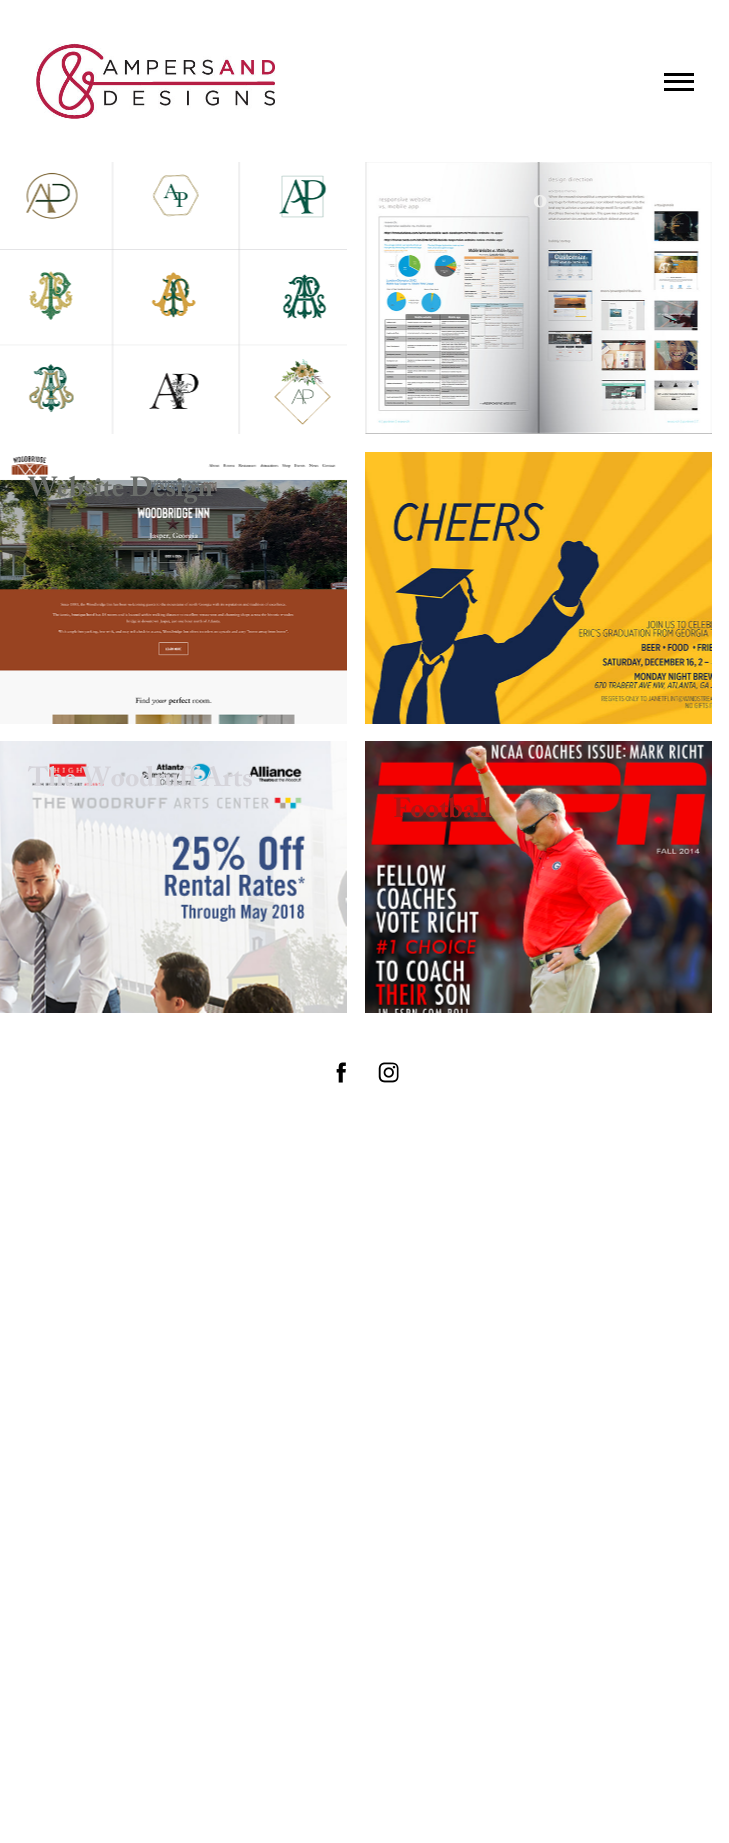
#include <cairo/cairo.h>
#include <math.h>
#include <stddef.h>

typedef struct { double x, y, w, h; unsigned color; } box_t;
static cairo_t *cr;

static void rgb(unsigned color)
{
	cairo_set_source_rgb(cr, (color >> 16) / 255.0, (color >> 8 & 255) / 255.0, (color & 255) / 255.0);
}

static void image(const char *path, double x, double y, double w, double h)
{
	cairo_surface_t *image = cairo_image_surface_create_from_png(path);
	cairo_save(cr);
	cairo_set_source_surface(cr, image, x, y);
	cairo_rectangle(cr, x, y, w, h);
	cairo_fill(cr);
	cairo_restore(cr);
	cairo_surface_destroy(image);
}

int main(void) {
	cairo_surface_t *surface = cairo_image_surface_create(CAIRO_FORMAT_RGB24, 729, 1843);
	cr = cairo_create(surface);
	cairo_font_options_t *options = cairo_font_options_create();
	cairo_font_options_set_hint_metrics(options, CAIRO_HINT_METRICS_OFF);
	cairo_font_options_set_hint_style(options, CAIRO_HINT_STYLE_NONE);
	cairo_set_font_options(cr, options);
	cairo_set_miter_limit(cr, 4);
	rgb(0xffffff);
	cairo_paint(cr);
	image("img/1.png", 36, 43, 239, 76);
	{
		static const box_t items[] = {
			{664, 73, 30, 3, 0x000000},
			{664, 80, 30, 3, 0x000000},
			{664, 88, 30, 3, 0x000000},
		};
		for (size_t i = 0; i < sizeof items / sizeof *items; i++) {
			rgb(items[i].color);
			cairo_rectangle(cr, items[i].x, items[i].y, items[i].w, items[i].h);
			cairo_fill(cr);
		}
	}
	image("img/2.png", 0, 162, 347, 272);
	image("img/3.png", 365, 162, 347, 272);
	image("img/4.png", 0, 456, 347, 268);
	image("img/5.png", 365, 452, 347, 272);
	image("img/6.png", 0, 741, 347, 272);
	image("img/7.png", 365, 741, 347, 272);
	image("img/8.png", 336, 1062, 10, 21);
	image("img/9.png", 378, 1062, 21, 21);
	cairo_select_font_face(cr, "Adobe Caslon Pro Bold", CAIRO_FONT_SLANT_NORMAL, CAIRO_FONT_WEIGHT_BOLD);
	cairo_set_font_size(cr, 27.5);
	rgb(0xf0f0ef);
	cairo_move_to(cr, 533, 207);
	cairo_show_text(cr, "o");
	rgb(0x6a6d6a);
	cairo_move_to(cr, 28, 496);
	cairo_show_text(cr, "Website Design");
	cairo_save(cr);
	cairo_rectangle(cr, 0, 766, 346, 247);
	cairo_clip(cr);
	rgb(0xd5d4da);
	cairo_move_to(cr, 28, 786);
	cairo_show_text(cr, "The Woodruff Arts");
	cairo_restore(cr);
	rgb(0xad1614);
	cairo_move_to(cr, 393, 817);
	cairo_show_text(cr, "Football");
	cairo_surface_write_to_png(surface, "page.png");
	cairo_font_options_destroy(options);
	cairo_destroy(cr);
	cairo_surface_destroy(surface);
	return 0;
}
